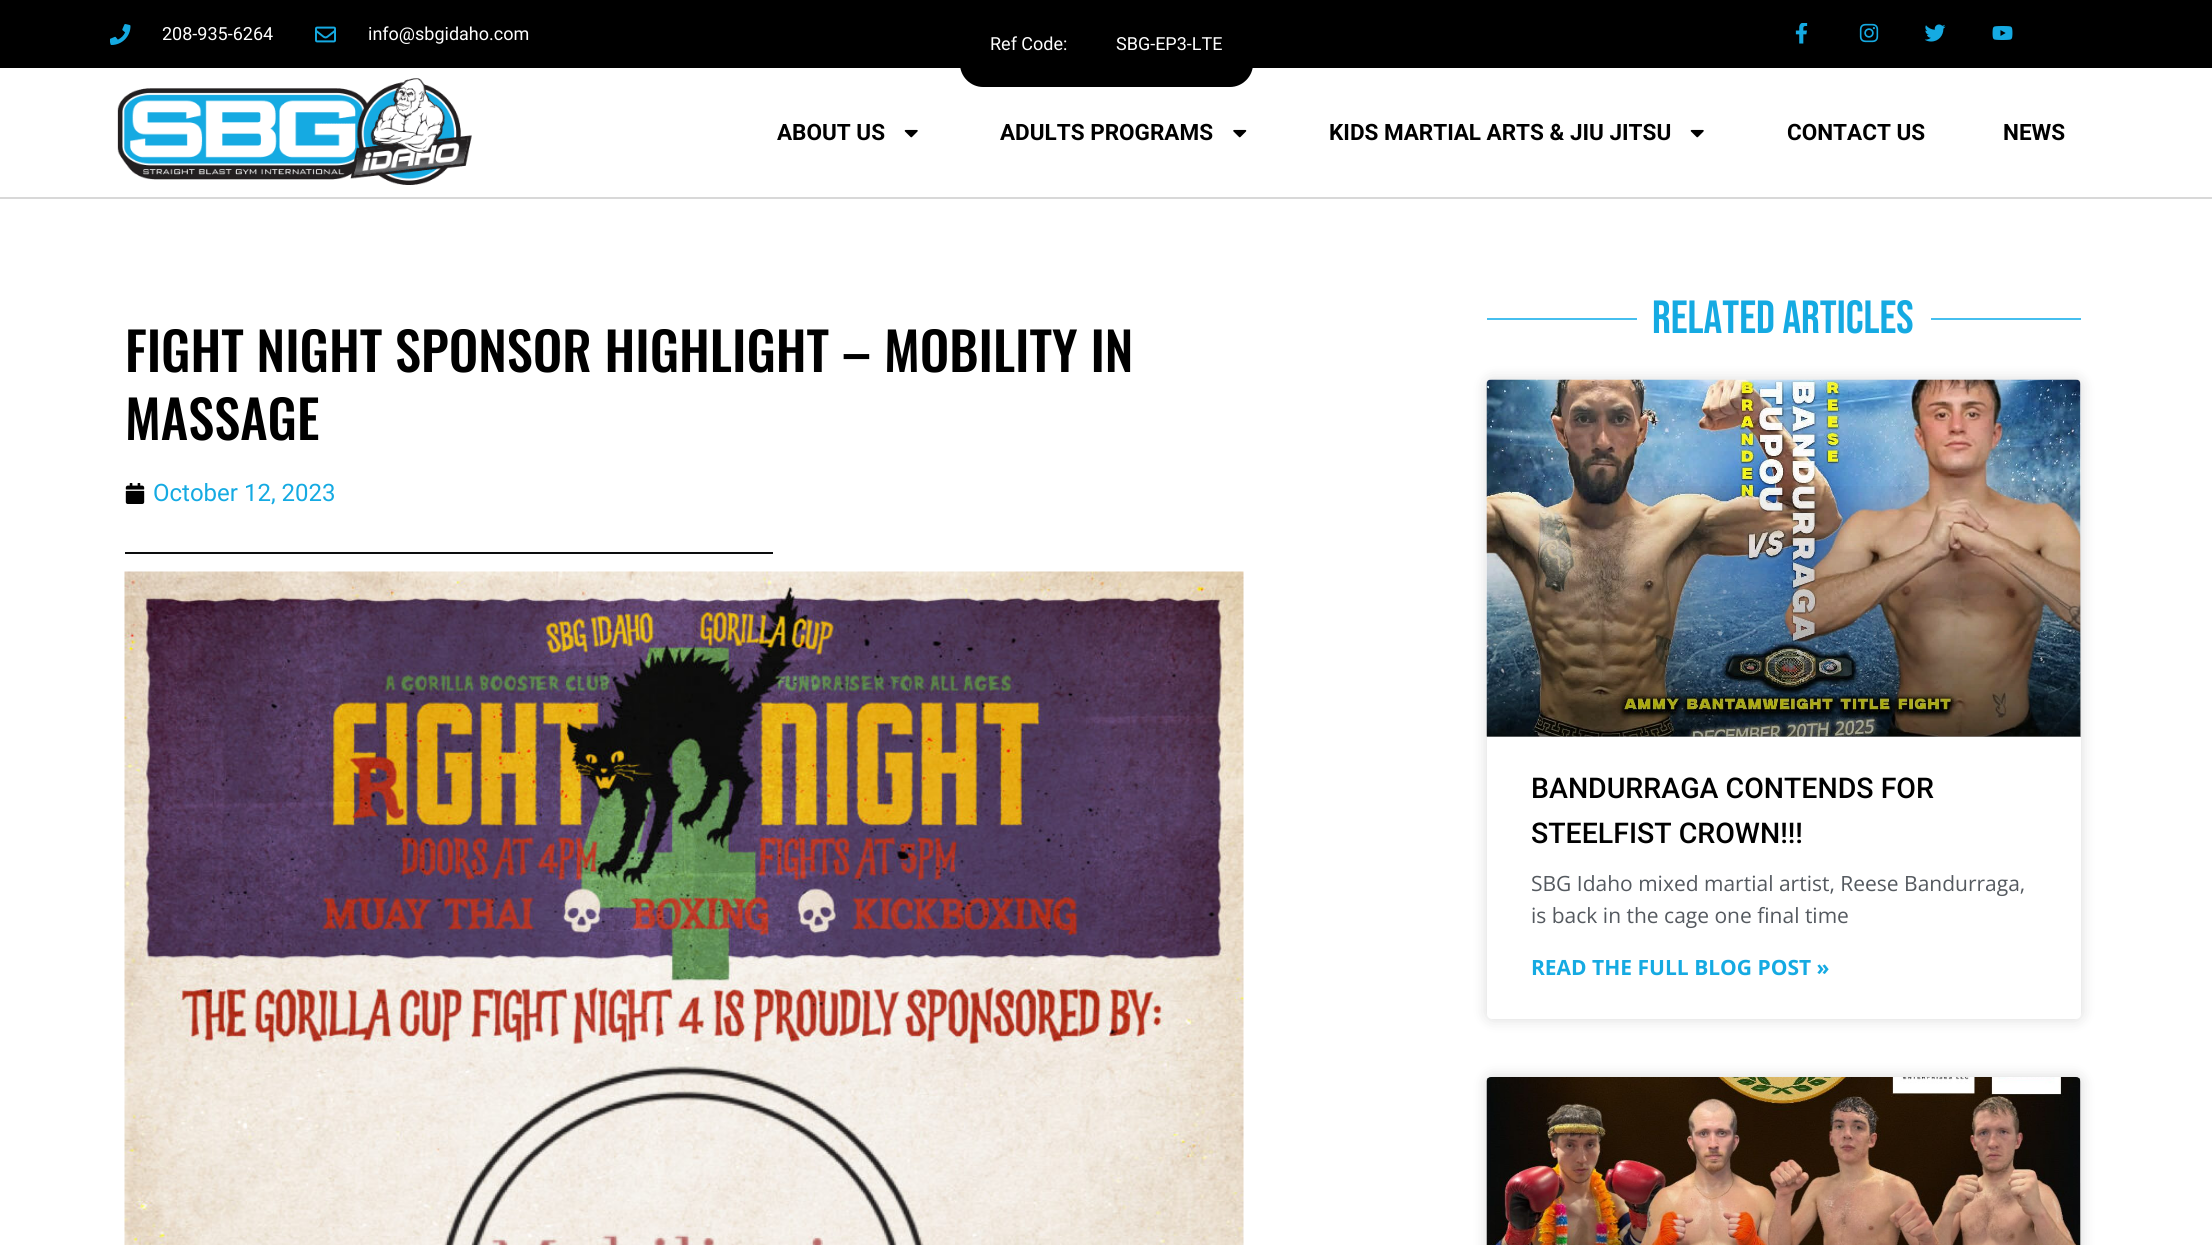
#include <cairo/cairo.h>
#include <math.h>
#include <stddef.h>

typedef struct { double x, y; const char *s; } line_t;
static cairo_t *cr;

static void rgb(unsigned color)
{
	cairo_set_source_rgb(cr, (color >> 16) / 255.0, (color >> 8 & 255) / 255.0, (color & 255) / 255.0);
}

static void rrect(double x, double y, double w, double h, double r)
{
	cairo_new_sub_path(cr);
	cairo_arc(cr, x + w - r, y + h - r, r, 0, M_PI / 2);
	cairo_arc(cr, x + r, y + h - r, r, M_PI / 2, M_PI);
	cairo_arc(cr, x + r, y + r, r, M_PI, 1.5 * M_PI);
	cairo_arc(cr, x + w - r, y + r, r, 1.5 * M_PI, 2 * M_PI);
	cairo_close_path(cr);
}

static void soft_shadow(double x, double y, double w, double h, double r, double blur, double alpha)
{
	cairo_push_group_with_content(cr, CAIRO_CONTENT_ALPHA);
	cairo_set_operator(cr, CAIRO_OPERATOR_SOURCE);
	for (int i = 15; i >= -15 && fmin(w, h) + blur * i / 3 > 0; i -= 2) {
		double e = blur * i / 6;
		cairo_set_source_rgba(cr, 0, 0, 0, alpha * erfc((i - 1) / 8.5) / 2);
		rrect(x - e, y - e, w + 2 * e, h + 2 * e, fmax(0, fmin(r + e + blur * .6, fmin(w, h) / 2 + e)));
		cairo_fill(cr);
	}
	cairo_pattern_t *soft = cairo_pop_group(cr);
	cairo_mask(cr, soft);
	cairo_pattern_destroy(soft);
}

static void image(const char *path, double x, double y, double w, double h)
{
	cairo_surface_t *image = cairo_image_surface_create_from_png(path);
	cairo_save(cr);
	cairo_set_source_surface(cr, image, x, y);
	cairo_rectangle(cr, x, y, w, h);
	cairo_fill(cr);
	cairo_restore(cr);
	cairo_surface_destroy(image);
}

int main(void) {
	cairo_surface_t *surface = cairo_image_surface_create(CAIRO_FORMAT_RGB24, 2212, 1245);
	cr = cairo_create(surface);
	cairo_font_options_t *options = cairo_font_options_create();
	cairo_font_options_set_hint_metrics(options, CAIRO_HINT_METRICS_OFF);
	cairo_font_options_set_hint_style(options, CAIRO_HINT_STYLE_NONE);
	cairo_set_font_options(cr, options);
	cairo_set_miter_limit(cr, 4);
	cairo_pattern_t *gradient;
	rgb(0xffffff);
	cairo_paint(cr);
	rgb(0x000000);
	cairo_rectangle(cr, 0, 0, 2212, 68);
	cairo_fill(cr);
	image("img/1.png", 110, 24, 21, 21);
	image("img/2.png", 315, 26, 21, 17);
	image("img/3.png", 1795, 23, 13, 21);
	image("img/4.png", 1859, 23, 20, 20);
	image("img/5.png", 1925, 24, 21, 18);
	image("img/6.png", 1992, 26, 21, 14);
	rgb(0xd8d8d8);
	cairo_rectangle(cr, 0, 197, 2212, 2);
	cairo_fill(cr);
	image("img/7.png", 117, 78, 355, 107);
	image("img/8.png", 904, 129, 14, 9);
	image("img/9.png", 1233, 129, 14, 9);
	image("img/8.png", 1690, 129, 14, 9);
	rgb(0x000000);
	cairo_new_path(cr);
	cairo_move_to(cr, 960, 0);
	cairo_line_to(cr, 1253, 0);
	cairo_line_to(cr, 1253, 64);
	cairo_curve_to(cr, 1253, 76.5, 1242.5, 87, 1230, 87);
	cairo_line_to(cr, 983, 87);
	cairo_curve_to(cr, 970.5, 87, 960, 76.5, 960, 64);
	cairo_close_path(cr);
	cairo_fill(cr);
	image("img/10.png", 125, 483, 20, 21);
	rgb(0x0c0d0e);
	cairo_rectangle(cr, 125, 552, 648, 2);
	cairo_fill(cr);
	image("img/11.png", 124, 571, 1120, 674);
	rgb(0x46bfef);
	cairo_rectangle(cr, 1487, 318, 150, 2);
	cairo_fill(cr);
	cairo_rectangle(cr, 1931, 318, 150, 2);
	cairo_fill(cr);
	rgb(0x000000);
	soft_shadow(1487, 380, 594, 639, 5, 7.5, 0.15);
	rgb(0xffffff);
	rrect(1487, 380, 594, 639, 5);
	cairo_fill(cr);
	image("img/12.png", 1486, 379, 595, 358);
	gradient = cairo_pattern_create_linear(1784, 737, 1784, 380);
	cairo_pattern_add_color_stop_rgba(gradient, 0, 0, 0, 0, 0.35);
	cairo_pattern_add_color_stop_rgba(gradient, 0.75, 0, 0, 0, 0);
	cairo_set_source(cr, gradient);
	cairo_pattern_destroy(gradient);
	cairo_rectangle(cr, 1487, 486, 594, 251);
	cairo_fill(cr);
	rgb(0x000000);
	soft_shadow(1487, 1077, 594, 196, 5, 7.5, 0.15);
	rgb(0xffffff);
	rrect(1487, 1077, 594, 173, 5);
	cairo_fill(cr);
	image("img/13.png", 1486, 1077, 595, 168);
	gradient = cairo_pattern_create_linear(1784, 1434, 1784, 1077);
	cairo_pattern_add_color_stop_rgba(gradient, 0, 0, 0, 0, 0.35);
	cairo_pattern_add_color_stop_rgba(gradient, 0.75, 0, 0, 0, 0);
	cairo_set_source(cr, gradient);
	cairo_pattern_destroy(gradient);
	cairo_rectangle(cr, 1495, 1183, 586, 62);
	cairo_fill(cr);
	cairo_select_font_face(cr, "Roboto", CAIRO_FONT_SLANT_NORMAL, CAIRO_FONT_WEIGHT_NORMAL);
	cairo_set_font_size(cr, 18);
	rgb(0xffffff);
	cairo_move_to(cr, 162, 40);
	cairo_show_text(cr, "208-935-6264");
	cairo_move_to(cr, 368, 40);
	cairo_show_text(cr, "info@sbgidaho.com");
	cairo_select_font_face(cr, "Roboto", CAIRO_FONT_SLANT_NORMAL, CAIRO_FONT_WEIGHT_BOLD);
	cairo_set_font_size(cr, 22.5);
	rgb(0x000000);
	{
		static const line_t items[] = {
			{777, 140, "ABOUT US"},
			{1000, 140, "ADULTS PROGRAMS"},
			{1329, 140, "KIDS MARTIAL ARTS & JIU JITSU"},
			{1787, 140, "CONTACT US"},
			{2003, 140, "NEWS"},
		};
		for (size_t i = 0; i < sizeof items / sizeof *items; i++) {
			cairo_move_to(cr, items[i].x, items[i].y);
			cairo_show_text(cr, items[i].s);
		}
	}
	cairo_select_font_face(cr, "Roboto", CAIRO_FONT_SLANT_NORMAL, CAIRO_FONT_WEIGHT_NORMAL);
	cairo_set_font_size(cr, 18);
	rgb(0xffffff);
	cairo_move_to(cr, 990, 50);
	cairo_show_text(cr, "Ref Code:");
	cairo_move_to(cr, 1116, 50);
	cairo_show_text(cr, "SBG-EP3-LTE");
	cairo_select_font_face(cr, "Oswald Medium", CAIRO_FONT_SLANT_NORMAL, CAIRO_FONT_WEIGHT_NORMAL);
	cairo_set_font_size(cr, 52.5);
	rgb(0x000000);
	cairo_move_to(cr, 125, 372);
	cairo_show_text(cr, "FIGHT NIGHT SPONSOR HIGHLIGHT – MOBILITY IN");
	cairo_move_to(cr, 125, 440);
	cairo_show_text(cr, "MASSAGE");
	cairo_select_font_face(cr, "Roboto", CAIRO_FONT_SLANT_NORMAL, CAIRO_FONT_WEIGHT_NORMAL);
	cairo_set_font_size(cr, 24);
	rgb(0x15aae2);
	cairo_move_to(cr, 153, 501);
	cairo_show_text(cr, "October 12, 2023");
	cairo_select_font_face(cr, "Bebas Neue", CAIRO_FONT_SLANT_NORMAL, CAIRO_FONT_WEIGHT_NORMAL);
	cairo_set_font_size(cr, 46.5);
	cairo_move_to(cr, 1652, 333);
	cairo_show_text(cr, "RELATED ARTICLES");
	cairo_select_font_face(cr, "Roboto Medium", CAIRO_FONT_SLANT_NORMAL, CAIRO_FONT_WEIGHT_NORMAL);
	cairo_set_font_size(cr, 28.5);
	rgb(0x000000);
	cairo_move_to(cr, 1531, 798);
	cairo_show_text(cr, "BANDURRAGA CONTENDS FOR");
	cairo_move_to(cr, 1531, 843);
	cairo_show_text(cr, "STEELFIST CROWN!!!");
	cairo_select_font_face(cr, "Open Sans", CAIRO_FONT_SLANT_NORMAL, CAIRO_FONT_WEIGHT_NORMAL);
	cairo_set_font_size(cr, 21);
	rgb(0x54595f);
	cairo_move_to(cr, 1531, 891);
	cairo_show_text(cr, "SBG Idaho mixed martial artist, Reese Bandurraga,");
	cairo_move_to(cr, 1531, 923);
	cairo_show_text(cr, "is back in the cage one final time");
	cairo_select_font_face(cr, "Open Sans", CAIRO_FONT_SLANT_NORMAL, CAIRO_FONT_WEIGHT_BOLD);
	rgb(0x15aae2);
	cairo_move_to(cr, 1531, 975);
	cairo_show_text(cr, "READ THE FULL BLOG POST »");
	cairo_surface_write_to_png(surface, "page.png");
	cairo_font_options_destroy(options);
	cairo_destroy(cr);
	cairo_surface_destroy(surface);
	return 0;
}
